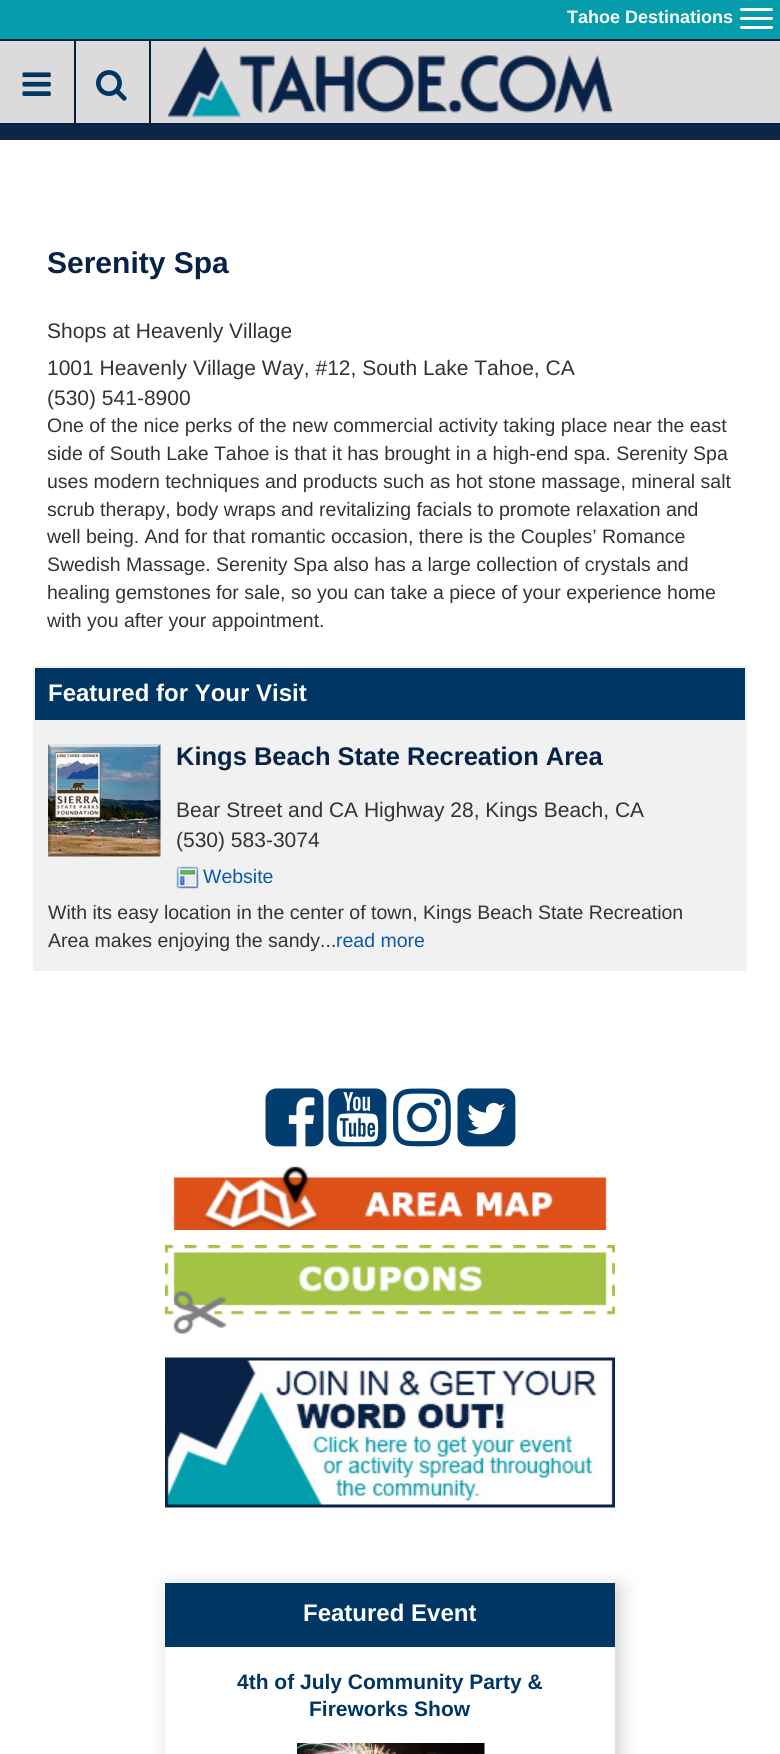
#include <cairo/cairo.h>
#include <math.h>
#include <stddef.h>

typedef struct { double x, y; const char *s; } line_t;
typedef struct { double x, y, w, h; unsigned color; } box_t;
static cairo_t *cr;

static void rgb(unsigned color)
{
	cairo_set_source_rgb(cr, (color >> 16) / 255.0, (color >> 8 & 255) / 255.0, (color & 255) / 255.0);
}

static void rrect(double x, double y, double w, double h, double r)
{
	cairo_new_sub_path(cr);
	cairo_arc(cr, x + w - r, y + h - r, r, 0, M_PI / 2);
	cairo_arc(cr, x + r, y + h - r, r, M_PI / 2, M_PI);
	cairo_arc(cr, x + r, y + r, r, M_PI, 1.5 * M_PI);
	cairo_arc(cr, x + w - r, y + r, r, 1.5 * M_PI, 2 * M_PI);
	cairo_close_path(cr);
}

static void soft_shadow(double x, double y, double w, double h, double r, double blur, double alpha)
{
	cairo_push_group_with_content(cr, CAIRO_CONTENT_ALPHA);
	cairo_set_operator(cr, CAIRO_OPERATOR_SOURCE);
	for (int i = 15; i >= -15 && fmin(w, h) + blur * i / 3 > 0; i -= 2) {
		double e = blur * i / 6;
		cairo_set_source_rgba(cr, 0, 0, 0, alpha * erfc((i - 1) / 8.5) / 2);
		rrect(x - e, y - e, w + 2 * e, h + 2 * e, fmax(0, fmin(r + e + blur * .6, fmin(w, h) / 2 + e)));
		cairo_fill(cr);
	}
	cairo_pattern_t *soft = cairo_pop_group(cr);
	cairo_mask(cr, soft);
	cairo_pattern_destroy(soft);
}

static void image(const char *path, double x, double y, double w, double h)
{
	cairo_surface_t *image = cairo_image_surface_create_from_png(path);
	cairo_save(cr);
	cairo_set_source_surface(cr, image, x, y);
	cairo_rectangle(cr, x, y, w, h);
	cairo_fill(cr);
	cairo_restore(cr);
	cairo_surface_destroy(image);
}

int main(void) {
	cairo_surface_t *surface = cairo_image_surface_create(CAIRO_FORMAT_RGB24, 780, 1754);
	cr = cairo_create(surface);
	cairo_font_options_t *options = cairo_font_options_create();
	cairo_font_options_set_hint_metrics(options, CAIRO_HINT_METRICS_OFF);
	cairo_font_options_set_hint_style(options, CAIRO_HINT_STYLE_NONE);
	cairo_set_font_options(cr, options);
	cairo_set_miter_limit(cr, 4);
	rgb(0x0e2448);
	cairo_paint(cr);
	rgb(0x059dab);
	cairo_rectangle(cr, 0, 0, 780, 39);
	cairo_fill(cr);
	rgb(0xffffff);
	rrect(740, 8, 33, 3, 1.5);
	cairo_fill(cr);
	rrect(740, 17, 33, 3, 1.5);
	cairo_fill(cr);
	rrect(740, 26, 33, 3, 1.5);
	cairo_fill(cr);
	{
		static const box_t items[] = {
			{0, 41, 780, 82, 0xdcdadb},
			{0, 39, 780, 2, 0x002341},
			{0, 123, 780, 2, 0x002341},
			{74, 41, 2, 82, 0x002341},
		};
		for (size_t i = 0; i < sizeof items / sizeof *items; i++) {
			rgb(items[i].color);
			cairo_rectangle(cr, items[i].x, items[i].y, items[i].w, items[i].h);
			cairo_fill(cr);
		}
	}
	image("img/1.png", 22, 72, 29, 24);
	cairo_rectangle(cr, 149, 41, 2, 82);
	cairo_fill(cr);
	image("img/2.png", 96, 70, 31, 31);
	image("img/3.png", 168, 46, 445, 72);
	rgb(0xffffff);
	cairo_rectangle(cr, 0, 140, 780, 1614);
	cairo_fill(cr);
	rgb(0xf1f1f1);
	cairo_rectangle(cr, 33, 722, 714, 249);
	cairo_fill(cr);
	rgb(0x003664);
	cairo_rectangle(cr, 34, 667, 712, 54);
	cairo_fill_preserve(cr);
	rgb(0xf1f1f1);
	cairo_stroke(cr);
	image("img/4.png", 48, 744, 113, 113);
	image("img/5.png", 176, 866, 23, 23);
	image("img/6.png", 265, 1088, 59, 59);
	image("img/7.png", 328, 1088, 59, 59);
	image("img/8.png", 393, 1088, 58, 59);
	image("img/9.png", 457, 1088, 59, 59);
	image("img/10.png", 173, 1166, 434, 64);
	image("img/11.png", 165, 1245, 450, 89);
	image("img/12.png", 165, 1357, 450, 151);
	cairo_save(cr);
	cairo_set_fill_rule(cr, CAIRO_FILL_RULE_EVEN_ODD);
	cairo_new_path(cr);
	cairo_move_to(cr, 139, 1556);
	cairo_line_to(cr, 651, 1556);
	cairo_line_to(cr, 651, 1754);
	cairo_line_to(cr, 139, 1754);
	cairo_close_path(cr);
	cairo_move_to(cr, 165, 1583);
	cairo_line_to(cr, 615, 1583);
	cairo_line_to(cr, 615, 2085);
	cairo_line_to(cr, 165, 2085);
	cairo_close_path(cr);
	cairo_clip(cr);
	rgb(0x100000);
	soft_shadow(170, 1587, 450, 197, 0, 10, 0.2);
	cairo_restore(cr);
	rgb(0x003664);
	cairo_rectangle(cr, 165, 1583, 450, 64);
	cairo_fill(cr);
	image("img/13.png", 297, 1743, 188, 11);
	cairo_select_font_face(cr, "Liberation Sans", CAIRO_FONT_SLANT_NORMAL, CAIRO_FONT_WEIGHT_BOLD);
	cairo_set_font_size(cr, 18);
	rgb(0xffffff);
	cairo_move_to(cr, 567, 23);
	cairo_show_text(cr, "Tahoe Destinations");
	cairo_set_font_size(cr, 30);
	rgb(0x072247);
	cairo_move_to(cr, 47, 273);
	cairo_show_text(cr, "Serenity Spa");
	cairo_select_font_face(cr, "Liberation Sans", CAIRO_FONT_SLANT_NORMAL, CAIRO_FONT_WEIGHT_NORMAL);
	cairo_set_font_size(cr, 21);
	rgb(0x333333);
	{
		static const line_t items[] = {
			{47, 338, "Shops at Heavenly Village"},
			{47, 375, "1001 Heavenly Village Way, #12, South Lake Tahoe, CA"},
			{47, 405, "(530) 541-8900"},
		};
		for (size_t i = 0; i < sizeof items / sizeof *items; i++) {
			cairo_move_to(cr, items[i].x, items[i].y);
			cairo_show_text(cr, items[i].s);
		}
	}
	cairo_set_font_size(cr, 19.5);
	{
		static const line_t items[] = {
			{47, 432, "One of the nice perks of the new commercial activity taking place near the east"},
			{47, 460, "side of South Lake Tahoe is that it has brought in a high-end spa. Serenity Spa"},
			{47, 488, "uses modern techniques and products such as hot stone massage, mineral salt"},
			{47, 516, "scrub therapy, body wraps and revitalizing facials to promote relaxation and"},
			{47, 543, "well being. And for that romantic occasion, there is the Couples’ Romance"},
			{47, 571, "Swedish Massage. Serenity Spa also has a large collection of crystals and"},
			{47, 599, "healing gemstones for sale, so you can take a piece of your experience home"},
			{47, 627, "with you after your appointment."},
		};
		for (size_t i = 0; i < sizeof items / sizeof *items; i++) {
			cairo_move_to(cr, items[i].x, items[i].y);
			cairo_show_text(cr, items[i].s);
		}
	}
	cairo_select_font_face(cr, "Liberation Sans", CAIRO_FONT_SLANT_NORMAL, CAIRO_FONT_WEIGHT_BOLD);
	cairo_set_font_size(cr, 24);
	rgb(0xffffff);
	cairo_move_to(cr, 48, 701);
	cairo_show_text(cr, "Featured for Your Visit");
	cairo_set_font_size(cr, 25.5);
	rgb(0x072247);
	cairo_move_to(cr, 176, 765);
	cairo_show_text(cr, "Kings Beach State Recreation Area");
	cairo_select_font_face(cr, "Liberation Sans", CAIRO_FONT_SLANT_NORMAL, CAIRO_FONT_WEIGHT_NORMAL);
	cairo_set_font_size(cr, 21);
	rgb(0x333333);
	cairo_move_to(cr, 176, 817);
	cairo_show_text(cr, "Bear Street and CA Highway 28, Kings Beach, CA");
	cairo_move_to(cr, 176, 847);
	cairo_show_text(cr, "(530) 583-3074");
	cairo_set_font_size(cr, 19.5);
	rgb(0x0b59a7);
	cairo_move_to(cr, 203, 883);
	cairo_show_text(cr, "Website");
	rgb(0x333333);
	cairo_move_to(cr, 48, 919);
	cairo_show_text(cr, "With its easy location in the center of town, Kings Beach State Recreation");
	cairo_move_to(cr, 48, 947);
	cairo_show_text(cr, "Area makes enjoying the sandy...");
	rgb(0x0b59a7);
	cairo_move_to(cr, 336, 947);
	cairo_show_text(cr, "read more");
	cairo_select_font_face(cr, "Liberation Sans", CAIRO_FONT_SLANT_NORMAL, CAIRO_FONT_WEIGHT_BOLD);
	cairo_set_font_size(cr, 24);
	rgb(0xffffff);
	cairo_move_to(cr, 303, 1621);
	cairo_show_text(cr, "Featured Event");
	cairo_set_font_size(cr, 21);
	rgb(0x003664);
	cairo_move_to(cr, 237, 1689);
	cairo_show_text(cr, "4th of July Community Party &");
	cairo_move_to(cr, 309, 1716);
	cairo_show_text(cr, "Fireworks Show");
	cairo_surface_write_to_png(surface, "page.png");
	cairo_font_options_destroy(options);
	cairo_destroy(cr);
	cairo_surface_destroy(surface);
	return 0;
}
